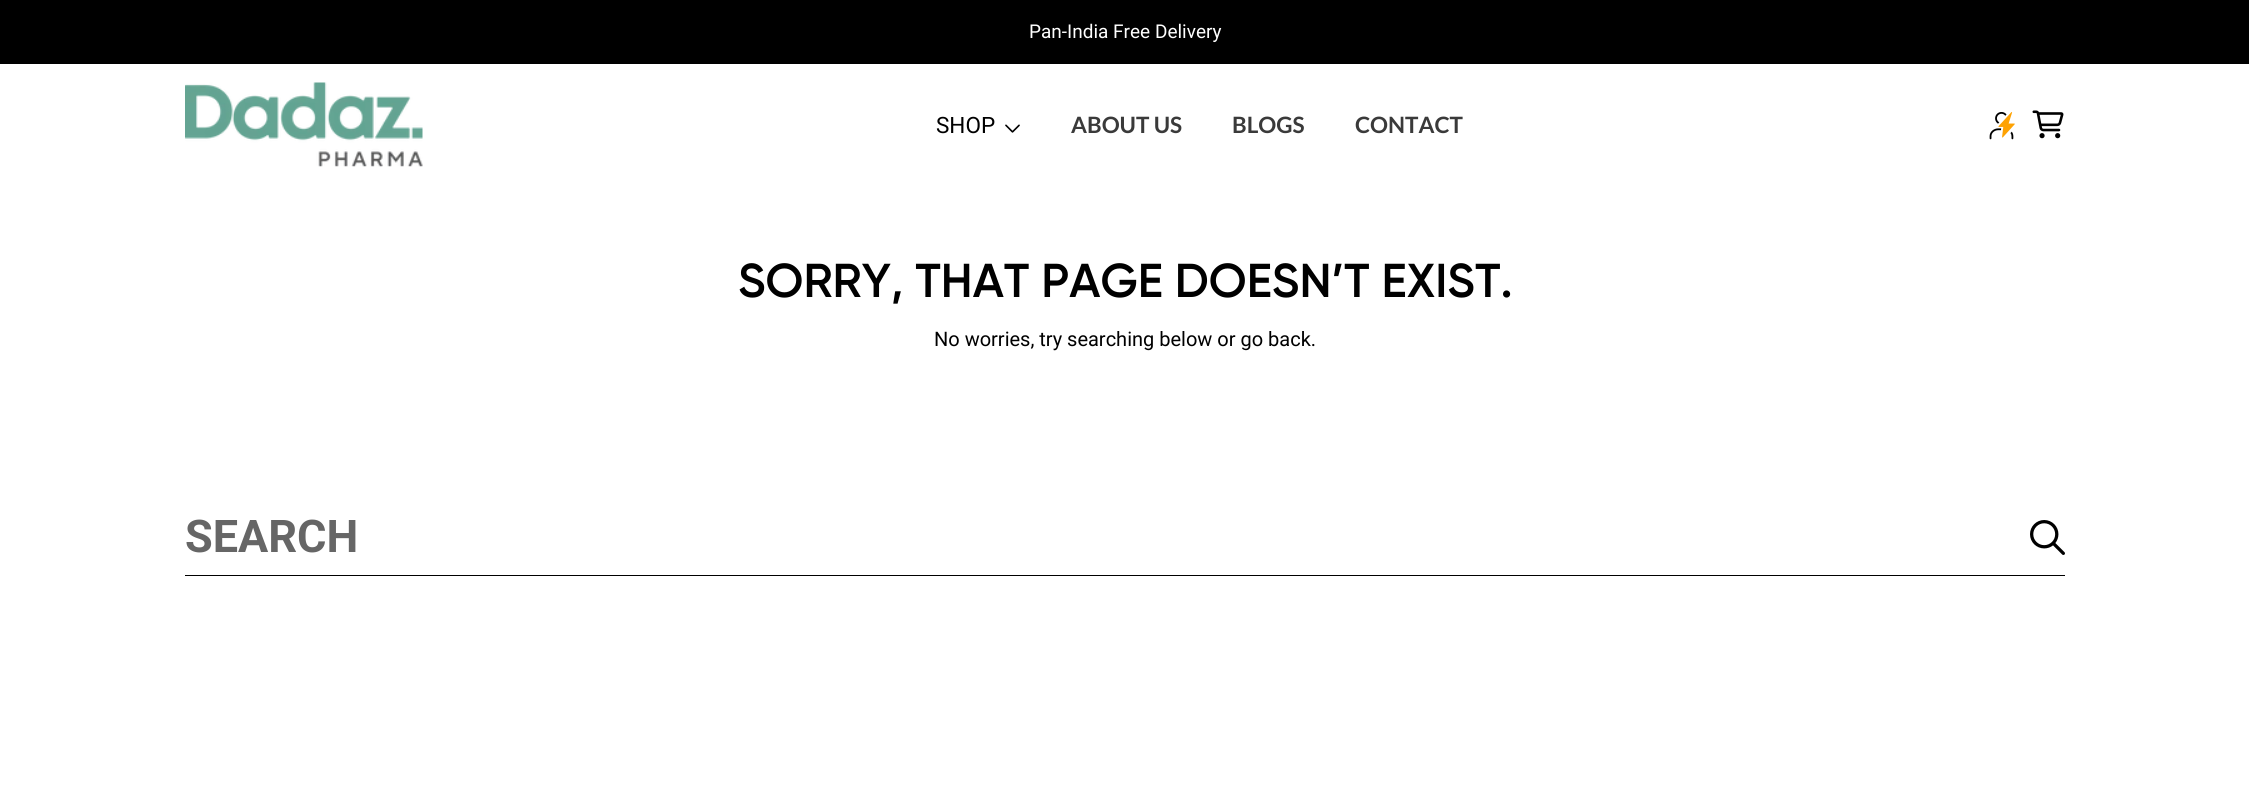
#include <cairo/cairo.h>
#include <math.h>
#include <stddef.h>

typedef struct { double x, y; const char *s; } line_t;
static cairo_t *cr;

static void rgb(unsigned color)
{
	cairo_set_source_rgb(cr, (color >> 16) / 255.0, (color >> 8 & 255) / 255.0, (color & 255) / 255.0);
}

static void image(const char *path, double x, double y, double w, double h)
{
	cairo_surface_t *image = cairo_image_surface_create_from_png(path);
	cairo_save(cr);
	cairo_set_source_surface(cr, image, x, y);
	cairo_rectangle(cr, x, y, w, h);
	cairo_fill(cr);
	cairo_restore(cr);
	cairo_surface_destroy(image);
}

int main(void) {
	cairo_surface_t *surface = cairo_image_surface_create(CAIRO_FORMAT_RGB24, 2249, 798);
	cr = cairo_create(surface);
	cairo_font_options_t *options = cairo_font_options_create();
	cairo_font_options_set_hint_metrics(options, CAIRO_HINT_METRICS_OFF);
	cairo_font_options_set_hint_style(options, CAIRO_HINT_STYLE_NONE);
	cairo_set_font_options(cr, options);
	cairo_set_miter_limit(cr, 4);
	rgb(0xffffff);
	cairo_paint(cr);
	rgb(0x000000);
	cairo_rectangle(cr, 0, 0, 2249, 64);
	cairo_fill(cr);
	image("img/1.png", 185, 82, 238, 85);
	image("img/2.png", 1005, 124, 15, 9);
	image("img/3.png", 1989, 112, 26, 28);
	image("img/4.png", 2032, 110, 32, 29);
	cairo_rectangle(cr, 185, 575, 1880, 1);
	cairo_fill(cr);
	image("img/5.png", 2030, 520, 35, 35);
	cairo_select_font_face(cr, "Roboto", CAIRO_FONT_SLANT_NORMAL, CAIRO_FONT_WEIGHT_NORMAL);
	cairo_set_font_size(cr, 19);
	rgb(0xffffff);
	cairo_move_to(cr, 1029, 38);
	cairo_show_text(cr, "Pan-India Free Delivery");
	cairo_set_font_size(cr, 22.5);
	rgb(0x000000);
	cairo_move_to(cr, 936, 133);
	cairo_show_text(cr, "SHOP");
	cairo_select_font_face(cr, "Lato", CAIRO_FONT_SLANT_NORMAL, CAIRO_FONT_WEIGHT_BOLD);
	rgb(0x3a3a3a);
	{
		static const line_t items[] = {
			{1071, 133, "ABOUT US"},
			{1232, 133, "BLOGS"},
			{1355, 133, "CONTACT"},
		};
		for (size_t i = 0; i < sizeof items / sizeof *items; i++) {
			cairo_move_to(cr, items[i].x, items[i].y);
			cairo_show_text(cr, items[i].s);
		}
	}
	cairo_select_font_face(cr, "Gilroy SemiBold", CAIRO_FONT_SLANT_NORMAL, CAIRO_FONT_WEIGHT_NORMAL);
	cairo_set_font_size(cr, 47.5);
	rgb(0x000000);
	cairo_move_to(cr, 738, 297);
	cairo_show_text(cr, "SORRY, THAT PAGE DOESN’T EXIST.");
	cairo_select_font_face(cr, "Roboto", CAIRO_FONT_SLANT_NORMAL, CAIRO_FONT_WEIGHT_NORMAL);
	cairo_set_font_size(cr, 20);
	cairo_move_to(cr, 934, 346);
	cairo_show_text(cr, "No worries, try searching below or go back.");
	cairo_select_font_face(cr, "Roboto", CAIRO_FONT_SLANT_NORMAL, CAIRO_FONT_WEIGHT_BOLD);
	cairo_set_font_size(cr, 45);
	rgb(0x666666);
	cairo_move_to(cr, 185, 552);
	cairo_show_text(cr, "SEARCH");
	cairo_surface_write_to_png(surface, "page.png");
	cairo_font_options_destroy(options);
	cairo_destroy(cr);
	cairo_surface_destroy(surface);
	return 0;
}
